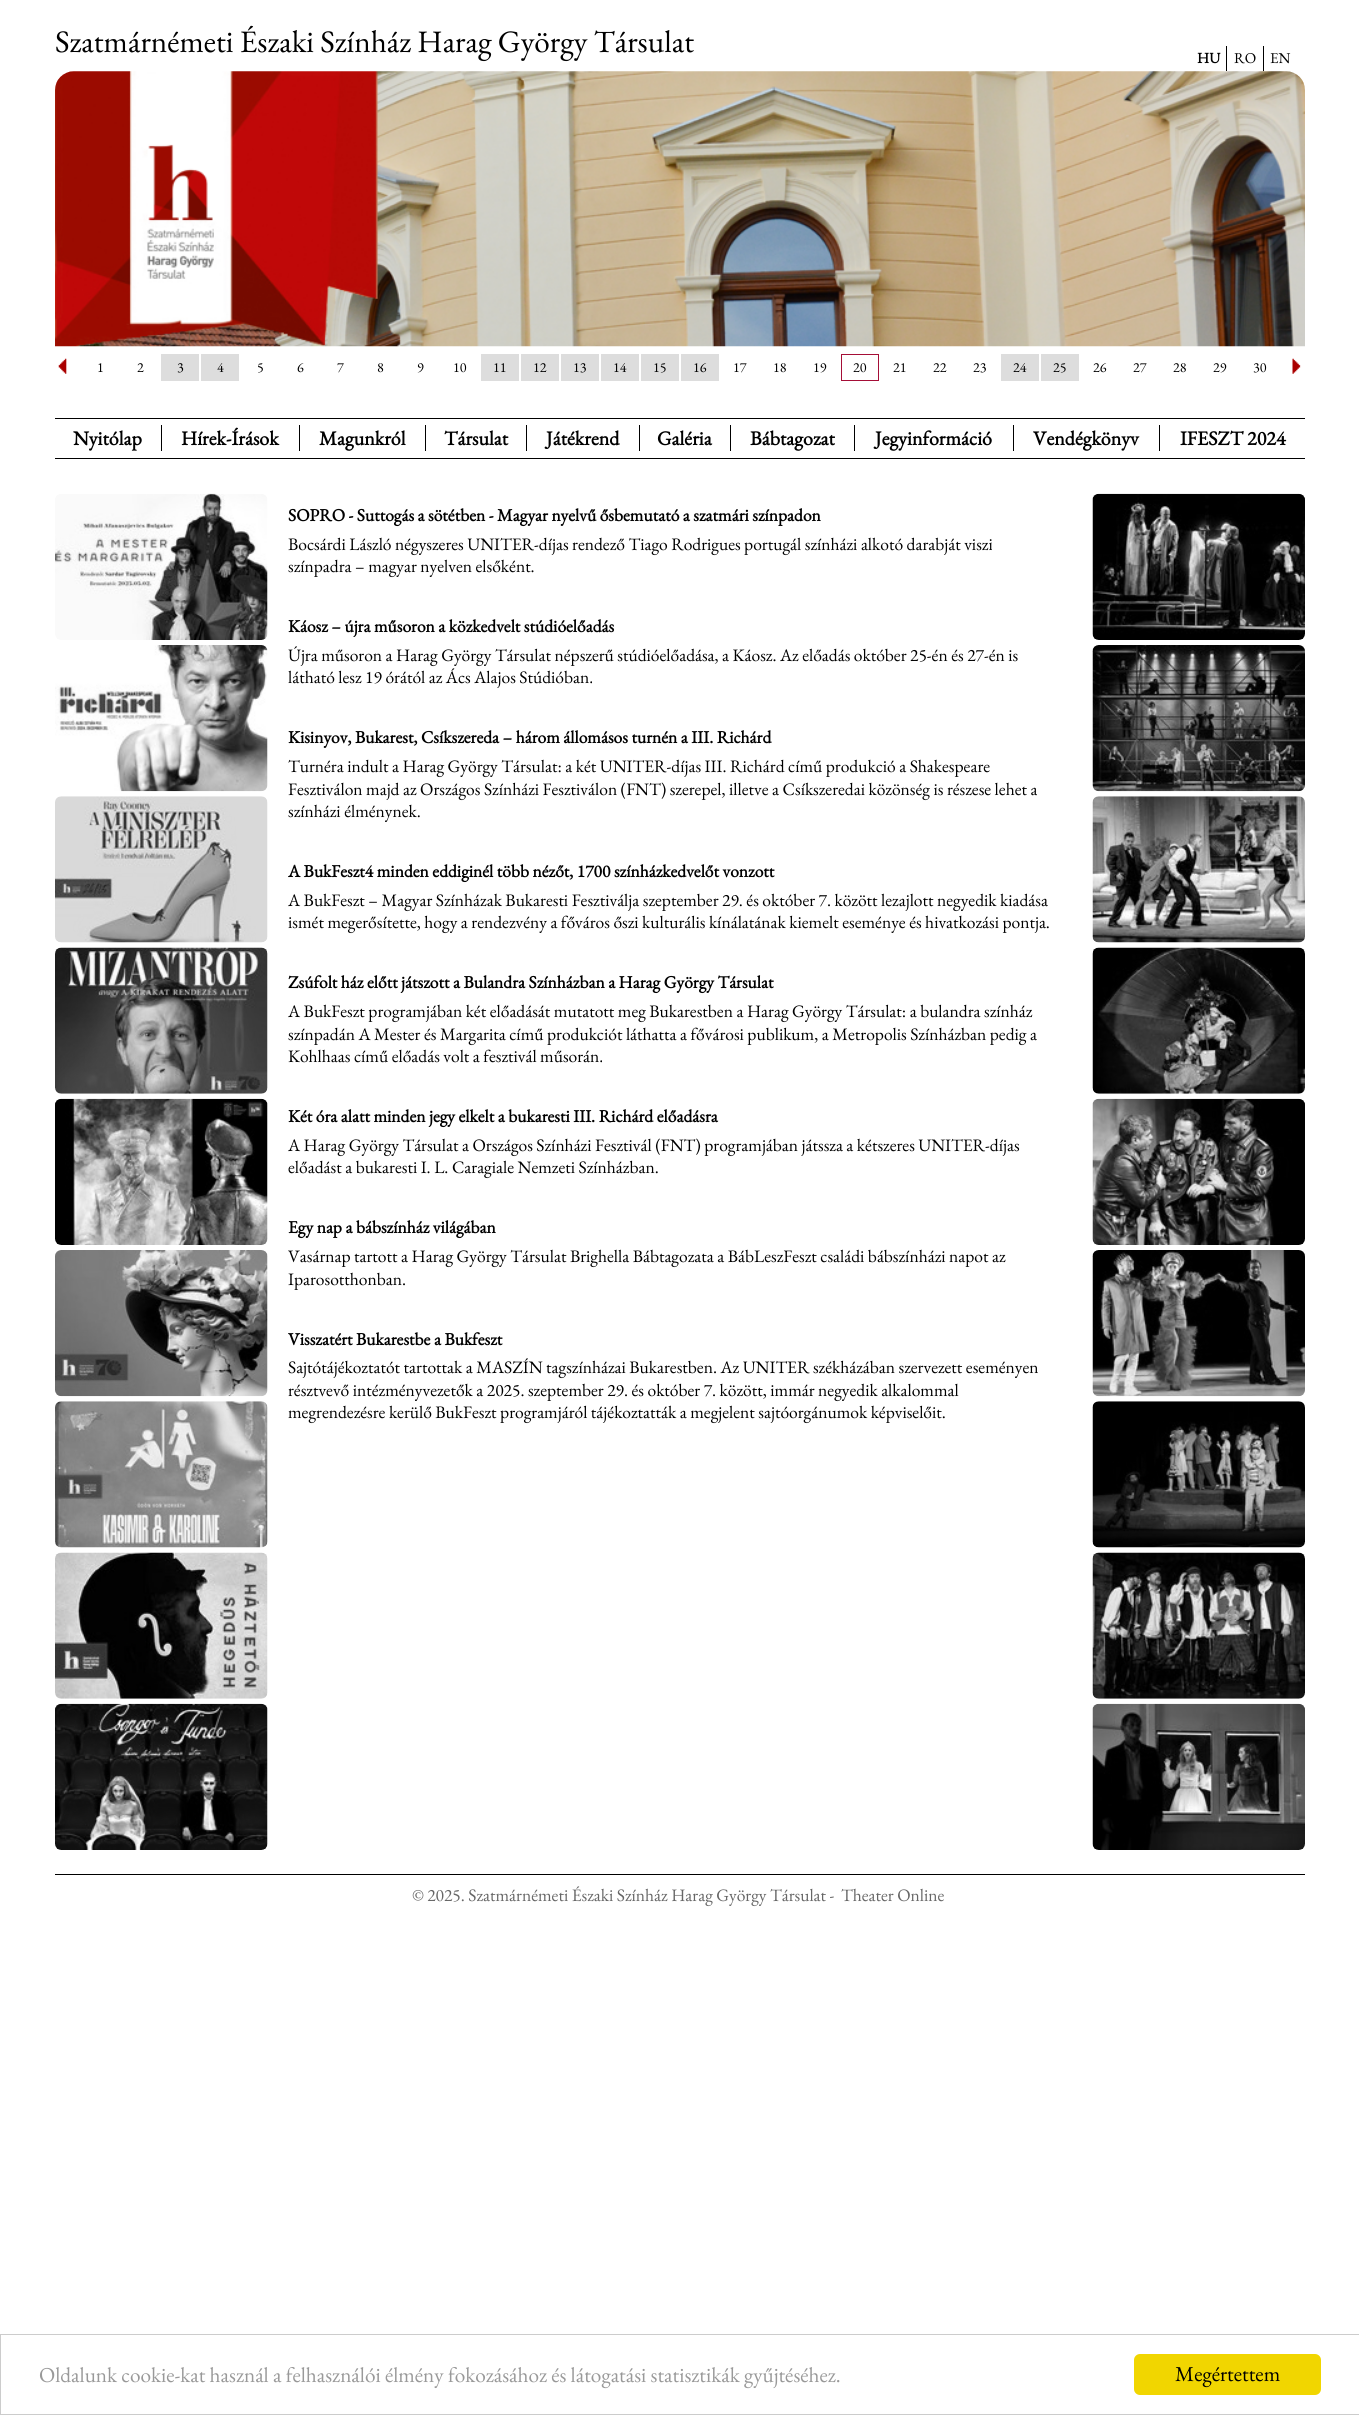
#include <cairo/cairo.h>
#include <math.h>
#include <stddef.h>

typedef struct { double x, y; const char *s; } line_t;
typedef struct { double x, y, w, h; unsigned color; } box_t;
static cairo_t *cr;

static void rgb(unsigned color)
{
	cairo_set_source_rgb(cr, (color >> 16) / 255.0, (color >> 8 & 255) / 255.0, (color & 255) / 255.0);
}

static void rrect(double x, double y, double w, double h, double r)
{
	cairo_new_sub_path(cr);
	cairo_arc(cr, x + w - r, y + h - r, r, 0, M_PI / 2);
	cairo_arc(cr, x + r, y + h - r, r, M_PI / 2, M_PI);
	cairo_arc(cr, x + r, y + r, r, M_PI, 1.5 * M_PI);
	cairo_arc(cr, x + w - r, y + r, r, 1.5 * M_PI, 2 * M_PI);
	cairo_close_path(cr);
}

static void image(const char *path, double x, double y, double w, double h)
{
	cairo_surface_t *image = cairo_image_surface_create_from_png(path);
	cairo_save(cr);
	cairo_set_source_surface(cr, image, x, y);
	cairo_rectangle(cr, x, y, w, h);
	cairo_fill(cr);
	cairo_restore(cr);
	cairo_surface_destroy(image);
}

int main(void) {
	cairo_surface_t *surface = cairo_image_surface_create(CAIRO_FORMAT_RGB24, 1359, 2415);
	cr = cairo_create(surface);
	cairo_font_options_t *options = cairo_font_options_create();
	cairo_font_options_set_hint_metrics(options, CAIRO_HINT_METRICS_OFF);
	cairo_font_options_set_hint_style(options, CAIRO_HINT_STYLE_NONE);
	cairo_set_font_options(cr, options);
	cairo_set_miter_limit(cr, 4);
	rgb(0xffffff);
	cairo_paint(cr);
	rgb(0x000000);
	cairo_rectangle(cr, 1226, 46, 1, 25);
	cairo_fill(cr);
	cairo_rectangle(cr, 1263, 46, 1, 25);
	cairo_fill(cr);
	image("img/1.png", 55, 71, 1250, 276);
	image("img/2.png", 58, 358, 9, 16);
	{
		static const box_t items[] = {
			{161, 354, 38, 27, 0xdddddd},
			{201, 354, 38, 27, 0xdddddd},
			{481, 354, 38, 27, 0xdddddd},
			{521, 354, 38, 27, 0xdddddd},
			{561, 354, 38, 27, 0xdddddd},
			{601, 354, 38, 27, 0xdddddd},
			{641, 354, 38, 27, 0xdddddd},
			{681, 354, 38, 27, 0xdddddd},
		};
		for (size_t i = 0; i < sizeof items / sizeof *items; i++) {
			rgb(items[i].color);
			cairo_rectangle(cr, items[i].x, items[i].y, items[i].w, items[i].h);
			cairo_fill(cr);
		}
	}
	cairo_rectangle(cr, 841.5, 354.5, 37, 26);
	rgb(0xa50e37);
	cairo_set_line_width(cr, 1);
	cairo_stroke(cr);
	rgb(0xdddddd);
	cairo_rectangle(cr, 1001, 354, 38, 27);
	cairo_fill(cr);
	cairo_rectangle(cr, 1041, 354, 38, 27);
	cairo_fill(cr);
	image("img/3.png", 1292, 358, 9, 16);
	{
		static const box_t items[] = {
			{55, 418, 1250, 1, 0x000000},
			{55, 458, 1250, 1, 0x000000},
			{161, 425, 1, 26, 0x000000},
			{299, 425, 1, 26, 0x000000},
			{425, 425, 1, 26, 0x000000},
			{526, 425, 1, 26, 0x000000},
			{639, 425, 1, 26, 0x000000},
			{730, 425, 1, 26, 0x000000},
			{854, 425, 1, 26, 0x000000},
			{1013, 425, 1, 26, 0x000000},
			{1159, 425, 1, 26, 0x000000},
		};
		for (size_t i = 0; i < sizeof items / sizeof *items; i++) {
			rgb(items[i].color);
			cairo_rectangle(cr, items[i].x, items[i].y, items[i].w, items[i].h);
			cairo_fill(cr);
		}
	}
	image("img/4.png", 55, 493, 213, 147);
	image("img/5.png", 55, 645, 213, 147);
	image("img/6.png", 55, 796, 213, 147);
	image("img/7.png", 55, 947, 213, 147);
	image("img/8.png", 55, 1098, 213, 147);
	image("img/9.png", 55, 1250, 213, 147);
	image("img/10.png", 55, 1401, 213, 147);
	image("img/11.png", 55, 1552, 213, 147);
	image("img/12.png", 55, 1703, 213, 147);
	image("img/13.png", 1092, 493, 213, 147);
	image("img/14.png", 1092, 645, 213, 147);
	image("img/15.png", 1092, 796, 213, 147);
	image("img/16.png", 1092, 947, 213, 147);
	image("img/17.png", 1092, 1098, 213, 147);
	image("img/18.png", 1092, 1250, 213, 147);
	image("img/19.png", 1092, 1401, 213, 147);
	image("img/20.png", 1092, 1552, 213, 147);
	image("img/21.png", 1092, 1703, 213, 147);
	cairo_rectangle(cr, 55, 1874, 1250, 1);
	cairo_fill(cr);
	cairo_rectangle(cr, 0.5, 2334.5, 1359, 80);
	rgb(0xcccccc);
	cairo_stroke(cr);
	rgb(0xf1d600);
	rrect(1134, 2354, 187, 41, 6);
	cairo_fill(cr);
	cairo_select_font_face(cr, "EB Garamond", CAIRO_FONT_SLANT_NORMAL, CAIRO_FONT_WEIGHT_NORMAL);
	cairo_set_font_size(cr, 31.25);
	rgb(0x000000);
	cairo_move_to(cr, 55, 52);
	cairo_show_text(cr, "Szatmárnémeti Északi Színház Harag György Társulat");
	cairo_select_font_face(cr, "EB Garamond", CAIRO_FONT_SLANT_NORMAL, CAIRO_FONT_WEIGHT_BOLD);
	cairo_set_font_size(cr, 15);
	cairo_move_to(cr, 1197, 63);
	cairo_show_text(cr, "HU");
	cairo_select_font_face(cr, "EB Garamond", CAIRO_FONT_SLANT_NORMAL, CAIRO_FONT_WEIGHT_NORMAL);
	cairo_move_to(cr, 1234, 63);
	cairo_show_text(cr, "RO");
	cairo_move_to(cr, 1270, 63);
	cairo_show_text(cr, "EN");
	cairo_set_font_size(cr, 14);
	{
		static const line_t items[] = {
			{97, 372, "1"},
			{137, 372, "2"},
			{177, 372, "3"},
			{217, 372, "4"},
			{257, 372, "5"},
			{297, 372, "6"},
			{337, 372, "7"},
			{377, 372, "8"},
			{417, 372, "9"},
			{453, 372, "10"},
			{493, 372, "11"},
			{533, 372, "12"},
			{573, 372, "13"},
			{613, 372, "14"},
			{653, 372, "15"},
			{693, 372, "16"},
			{733, 372, "17"},
			{773, 372, "18"},
			{813, 372, "19"},
			{853, 372, "20"},
			{893, 372, "21"},
			{933, 372, "22"},
			{973, 372, "23"},
			{1013, 372, "24"},
			{1053, 372, "25"},
			{1093, 372, "26"},
			{1133, 372, "27"},
			{1173, 372, "28"},
			{1213, 372, "29"},
			{1253, 372, "30"},
		};
		for (size_t i = 0; i < sizeof items / sizeof *items; i++) {
			cairo_move_to(cr, items[i].x, items[i].y);
			cairo_show_text(cr, items[i].s);
		}
	}
	cairo_select_font_face(cr, "EB Garamond", CAIRO_FONT_SLANT_NORMAL, CAIRO_FONT_WEIGHT_BOLD);
	cairo_set_font_size(cr, 20);
	{
		static const line_t items[] = {
			{73, 445, "Nyitólap"},
			{181, 445, "Hírek-Írások"},
			{319, 445, "Magunkról"},
			{444, 445, "Társulat"},
			{546, 445, "Játékrend"},
			{657, 445, "Galéria"},
			{750, 445, "Bábtagozat"},
			{875, 445, "Jegyinformáció"},
			{1033, 445, "Vendégkönyv"},
			{1180, 445, "IFESZT 2024"},
		};
		for (size_t i = 0; i < sizeof items / sizeof *items; i++) {
			cairo_move_to(cr, items[i].x, items[i].y);
			cairo_show_text(cr, items[i].s);
		}
	}
	cairo_set_font_size(cr, 17.5);
	cairo_move_to(cr, 288, 521);
	cairo_show_text(cr, "SOPRO - Suttogás a sötétben - Magyar nyelvű ősbemutató a szatmári színpadon");
	cairo_select_font_face(cr, "EB Garamond", CAIRO_FONT_SLANT_NORMAL, CAIRO_FONT_WEIGHT_NORMAL);
	cairo_move_to(cr, 288, 550);
	cairo_show_text(cr, "Bocsárdi László négyszeres UNITER-díjas rendező Tiago Rodrigues portugál színházi alkotó darabját viszi");
	cairo_move_to(cr, 288, 572);
	cairo_show_text(cr, "színpadra – magyar nyelven elsőként.");
	cairo_select_font_face(cr, "EB Garamond", CAIRO_FONT_SLANT_NORMAL, CAIRO_FONT_WEIGHT_BOLD);
	cairo_move_to(cr, 288, 632);
	cairo_show_text(cr, "Káosz – újra műsoron a közkedvelt stúdióelőadás");
	cairo_select_font_face(cr, "EB Garamond", CAIRO_FONT_SLANT_NORMAL, CAIRO_FONT_WEIGHT_NORMAL);
	cairo_move_to(cr, 288, 661);
	cairo_show_text(cr, "Újra műsoron a Harag György Társulat népszerű stúdióelőadása, a Káosz. Az előadás október 25-én és 27-én is");
	cairo_move_to(cr, 288, 683);
	cairo_show_text(cr, "látható lesz 19 órától az Ács Alajos Stúdióban.");
	cairo_select_font_face(cr, "EB Garamond", CAIRO_FONT_SLANT_NORMAL, CAIRO_FONT_WEIGHT_BOLD);
	cairo_move_to(cr, 288, 743);
	cairo_show_text(cr, "Kisinyov, Bukarest, Csíkszereda – három állomásos turnén a III. Richárd");
	cairo_select_font_face(cr, "EB Garamond", CAIRO_FONT_SLANT_NORMAL, CAIRO_FONT_WEIGHT_NORMAL);
	{
		static const line_t items[] = {
			{288, 772, "Turnéra indult a Harag György Társulat: a két UNITER-díjas III. Richárd című produkció a Shakespeare"},
			{288, 795, "Fesztiválon majd az Országos Színházi Fesztiválon (FNT) szerepel, illetve a Csíkszeredai közönség is részese lehet a"},
			{288, 817, "színházi élménynek."},
		};
		for (size_t i = 0; i < sizeof items / sizeof *items; i++) {
			cairo_move_to(cr, items[i].x, items[i].y);
			cairo_show_text(cr, items[i].s);
		}
	}
	cairo_select_font_face(cr, "EB Garamond", CAIRO_FONT_SLANT_NORMAL, CAIRO_FONT_WEIGHT_BOLD);
	cairo_move_to(cr, 288, 877);
	cairo_show_text(cr, "A BukFeszt4 minden eddiginél több nézőt, 1700 színházkedvelőt vonzott");
	cairo_select_font_face(cr, "EB Garamond", CAIRO_FONT_SLANT_NORMAL, CAIRO_FONT_WEIGHT_NORMAL);
	cairo_move_to(cr, 288, 906);
	cairo_show_text(cr, "A BukFeszt – Magyar Színházak Bukaresti Fesztiválja szeptember 29. és október 7. között lezajlott negyedik kiadása");
	cairo_move_to(cr, 288, 928);
	cairo_show_text(cr, "ismét megerősítette, hogy a rendezvény a főváros őszi kulturális kínálatának kiemelt eseménye és hivatkozási pontja.");
	cairo_select_font_face(cr, "EB Garamond", CAIRO_FONT_SLANT_NORMAL, CAIRO_FONT_WEIGHT_BOLD);
	cairo_move_to(cr, 288, 988);
	cairo_show_text(cr, "Zsúfolt ház előtt játszott a Bulandra Színházban a Harag György Társulat");
	cairo_select_font_face(cr, "EB Garamond", CAIRO_FONT_SLANT_NORMAL, CAIRO_FONT_WEIGHT_NORMAL);
	{
		static const line_t items[] = {
			{288, 1017, "A BukFeszt programjában két előadását mutatott meg Bukarestben a Harag György Társulat: a bulandra színház"},
			{288, 1040, "színpadán A Mester és Margarita című produkciót láthatta a fővárosi publikum, a Metropolis Színházban pedig a"},
			{288, 1062, "Kohlhaas című előadás volt a fesztivál műsorán."},
		};
		for (size_t i = 0; i < sizeof items / sizeof *items; i++) {
			cairo_move_to(cr, items[i].x, items[i].y);
			cairo_show_text(cr, items[i].s);
		}
	}
	cairo_select_font_face(cr, "EB Garamond", CAIRO_FONT_SLANT_NORMAL, CAIRO_FONT_WEIGHT_BOLD);
	cairo_move_to(cr, 288, 1122);
	cairo_show_text(cr, "Két óra alatt minden jegy elkelt a bukaresti III. Richárd előadásra");
	cairo_select_font_face(cr, "EB Garamond", CAIRO_FONT_SLANT_NORMAL, CAIRO_FONT_WEIGHT_NORMAL);
	cairo_move_to(cr, 288, 1151);
	cairo_show_text(cr, "A Harag György Társulat a Országos Színházi Fesztivál (FNT) programjában játssza a kétszeres UNITER-díjas");
	cairo_move_to(cr, 288, 1173);
	cairo_show_text(cr, "előadást a bukaresti I. L. Caragiale Nemzeti Színházban.");
	cairo_select_font_face(cr, "EB Garamond", CAIRO_FONT_SLANT_NORMAL, CAIRO_FONT_WEIGHT_BOLD);
	cairo_move_to(cr, 288, 1233);
	cairo_show_text(cr, "Egy nap a bábszínház világában");
	cairo_select_font_face(cr, "EB Garamond", CAIRO_FONT_SLANT_NORMAL, CAIRO_FONT_WEIGHT_NORMAL);
	cairo_move_to(cr, 288, 1262);
	cairo_show_text(cr, "Vasárnap tartott a Harag György Társulat Brighella Bábtagozata a BábLeszFeszt családi bábszínházi napot az");
	cairo_move_to(cr, 288, 1285);
	cairo_show_text(cr, "Iparosotthonban.");
	cairo_select_font_face(cr, "EB Garamond", CAIRO_FONT_SLANT_NORMAL, CAIRO_FONT_WEIGHT_BOLD);
	cairo_move_to(cr, 288, 1345);
	cairo_show_text(cr, "Visszatért Bukarestbe a Bukfeszt");
	cairo_select_font_face(cr, "EB Garamond", CAIRO_FONT_SLANT_NORMAL, CAIRO_FONT_WEIGHT_NORMAL);
	{
		static const line_t items[] = {
			{288, 1373, "Sajtótájékoztatót tartottak a MASZÍN tagszínházai Bukarestben. Az UNITER székházában szervezett eseményen"},
			{288, 1396, "résztvevő intézményvezetők a 2025. szeptember 29. és október 7. között, immár negyedik alkalommal"},
			{288, 1418, "megrendezésre kerülő BukFeszt programjáról tájékoztatták a megjelent sajtóorgánumok képviselőit."},
		};
		for (size_t i = 0; i < sizeof items / sizeof *items; i++) {
			cairo_move_to(cr, items[i].x, items[i].y);
			cairo_show_text(cr, items[i].s);
		}
	}
	rgb(0x666666);
	cairo_move_to(cr, 412, 1901);
	cairo_show_text(cr, "© 2025. Szatmárnémeti Északi Színház Harag György Társulat -");
	cairo_move_to(cr, 841, 1901);
	cairo_show_text(cr, "Theater Online");
	cairo_set_font_size(cr, 21.25);
	rgb(0x999999);
	cairo_move_to(cr, 39, 2382);
	cairo_show_text(cr, "Oldalunk cookie-kat használ a felhasználói élmény fokozásához és látogatási statisztikák gyűjtéséhez.");
	rgb(0x000000);
	cairo_move_to(cr, 1175, 2381);
	cairo_show_text(cr, "Megértettem");
	cairo_surface_write_to_png(surface, "page.png");
	cairo_font_options_destroy(options);
	cairo_destroy(cr);
	cairo_surface_destroy(surface);
	return 0;
}
